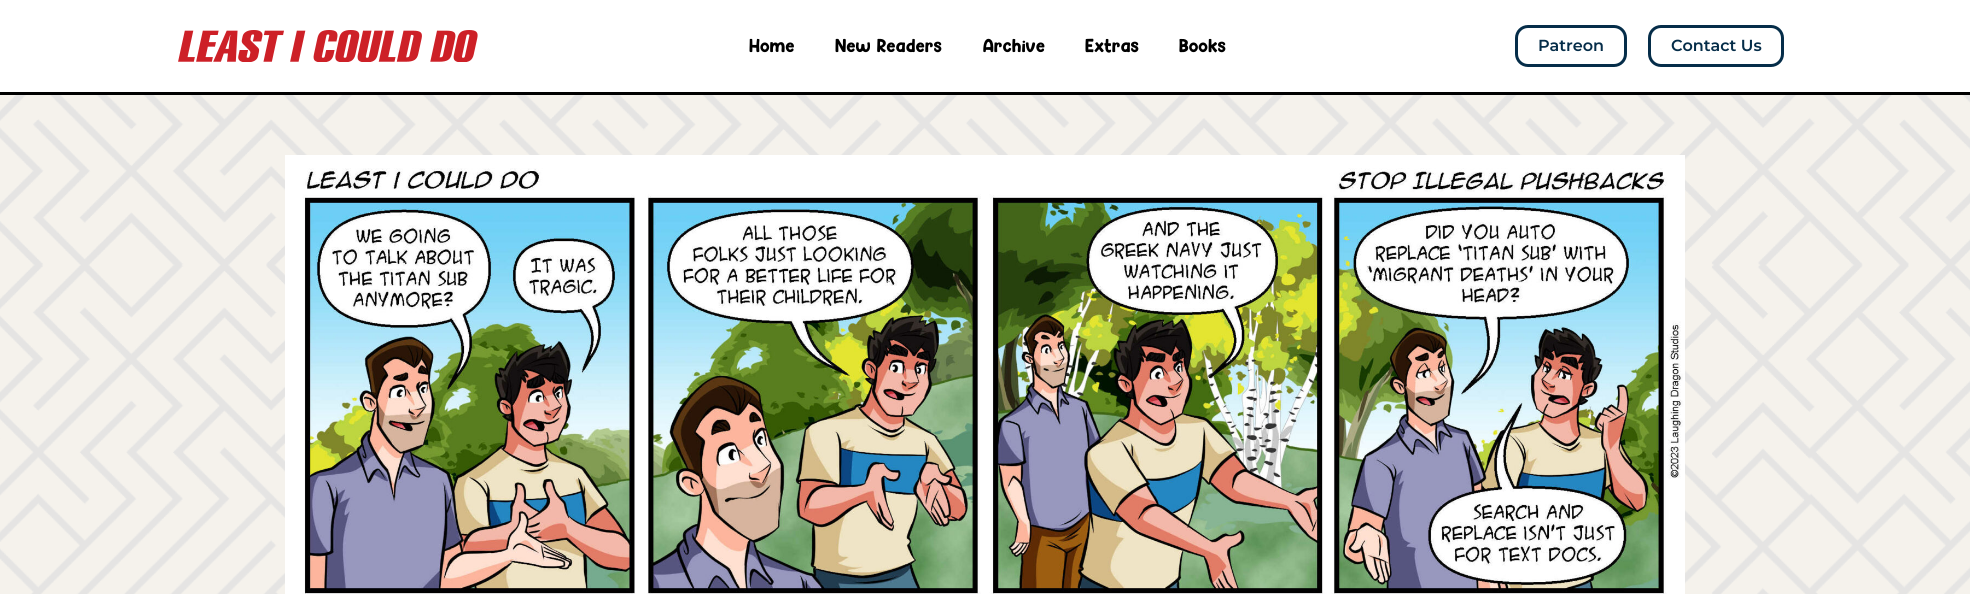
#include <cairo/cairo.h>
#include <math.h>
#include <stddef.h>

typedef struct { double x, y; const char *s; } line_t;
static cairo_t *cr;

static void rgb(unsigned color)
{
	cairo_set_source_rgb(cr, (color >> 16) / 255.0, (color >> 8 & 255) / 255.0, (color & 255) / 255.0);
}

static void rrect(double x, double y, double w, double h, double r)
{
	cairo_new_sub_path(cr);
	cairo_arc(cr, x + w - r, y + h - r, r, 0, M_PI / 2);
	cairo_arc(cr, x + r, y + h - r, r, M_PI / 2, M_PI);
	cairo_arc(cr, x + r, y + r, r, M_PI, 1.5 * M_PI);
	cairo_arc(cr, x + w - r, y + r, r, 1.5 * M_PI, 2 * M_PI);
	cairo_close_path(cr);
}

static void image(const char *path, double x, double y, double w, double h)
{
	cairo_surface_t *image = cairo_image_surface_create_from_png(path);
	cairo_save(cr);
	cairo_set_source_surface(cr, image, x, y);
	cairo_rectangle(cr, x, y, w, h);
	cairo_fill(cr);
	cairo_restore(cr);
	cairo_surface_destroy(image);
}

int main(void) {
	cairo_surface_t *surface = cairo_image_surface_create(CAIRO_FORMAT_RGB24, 1970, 594);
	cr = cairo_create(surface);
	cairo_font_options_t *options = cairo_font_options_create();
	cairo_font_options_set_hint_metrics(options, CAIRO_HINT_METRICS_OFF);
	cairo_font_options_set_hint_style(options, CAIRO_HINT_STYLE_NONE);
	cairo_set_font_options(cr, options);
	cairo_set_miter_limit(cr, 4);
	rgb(0xffffff);
	cairo_paint(cr);
	rgb(0x000000);
	cairo_rectangle(cr, 0, 92, 1970, 3);
	cairo_fill(cr);
	image("img/1.png", 178, 30, 300, 32);
	rrect(1516.5, 26.5, 109, 39, 11.5);
	rgb(0x052d49);
	cairo_set_line_width(cr, 3);
	cairo_stroke(cr);
	rrect(1649.5, 26.5, 133, 39, 11.5);
	cairo_stroke(cr);
	rgb(0xf5f2ec);
	cairo_rectangle(cr, 0, 95, 1970, 499);
	cairo_fill(cr);
	image("img/2.png", 0, 95, 1970, 499);
	image("img/3.png", 285, 155, 1400, 439);
	cairo_select_font_face(cr, "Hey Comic", CAIRO_FONT_SLANT_NORMAL, CAIRO_FONT_WEIGHT_NORMAL);
	cairo_set_font_size(cr, 17.5);
	rgb(0x000000);
	{
		static const line_t items[] = {
			{749, 52, "Home"},
			{835, 52, "New Readers"},
			{983, 52, "Archive"},
			{1085, 52, "Extras"},
			{1179, 52, "Books"},
		};
		for (size_t i = 0; i < sizeof items / sizeof *items; i++) {
			cairo_move_to(cr, items[i].x, items[i].y);
			cairo_show_text(cr, items[i].s);
		}
	}
	cairo_select_font_face(cr, "Montserrat SemiBold", CAIRO_FONT_SLANT_NORMAL, CAIRO_FONT_WEIGHT_NORMAL);
	cairo_set_font_size(cr, 16);
	rgb(0x052d49);
	cairo_move_to(cr, 1538, 51);
	cairo_show_text(cr, "Patreon");
	cairo_move_to(cr, 1671, 51);
	cairo_show_text(cr, "Contact Us");
	cairo_surface_write_to_png(surface, "page.png");
	cairo_font_options_destroy(options);
	cairo_destroy(cr);
	cairo_surface_destroy(surface);
	return 0;
}
